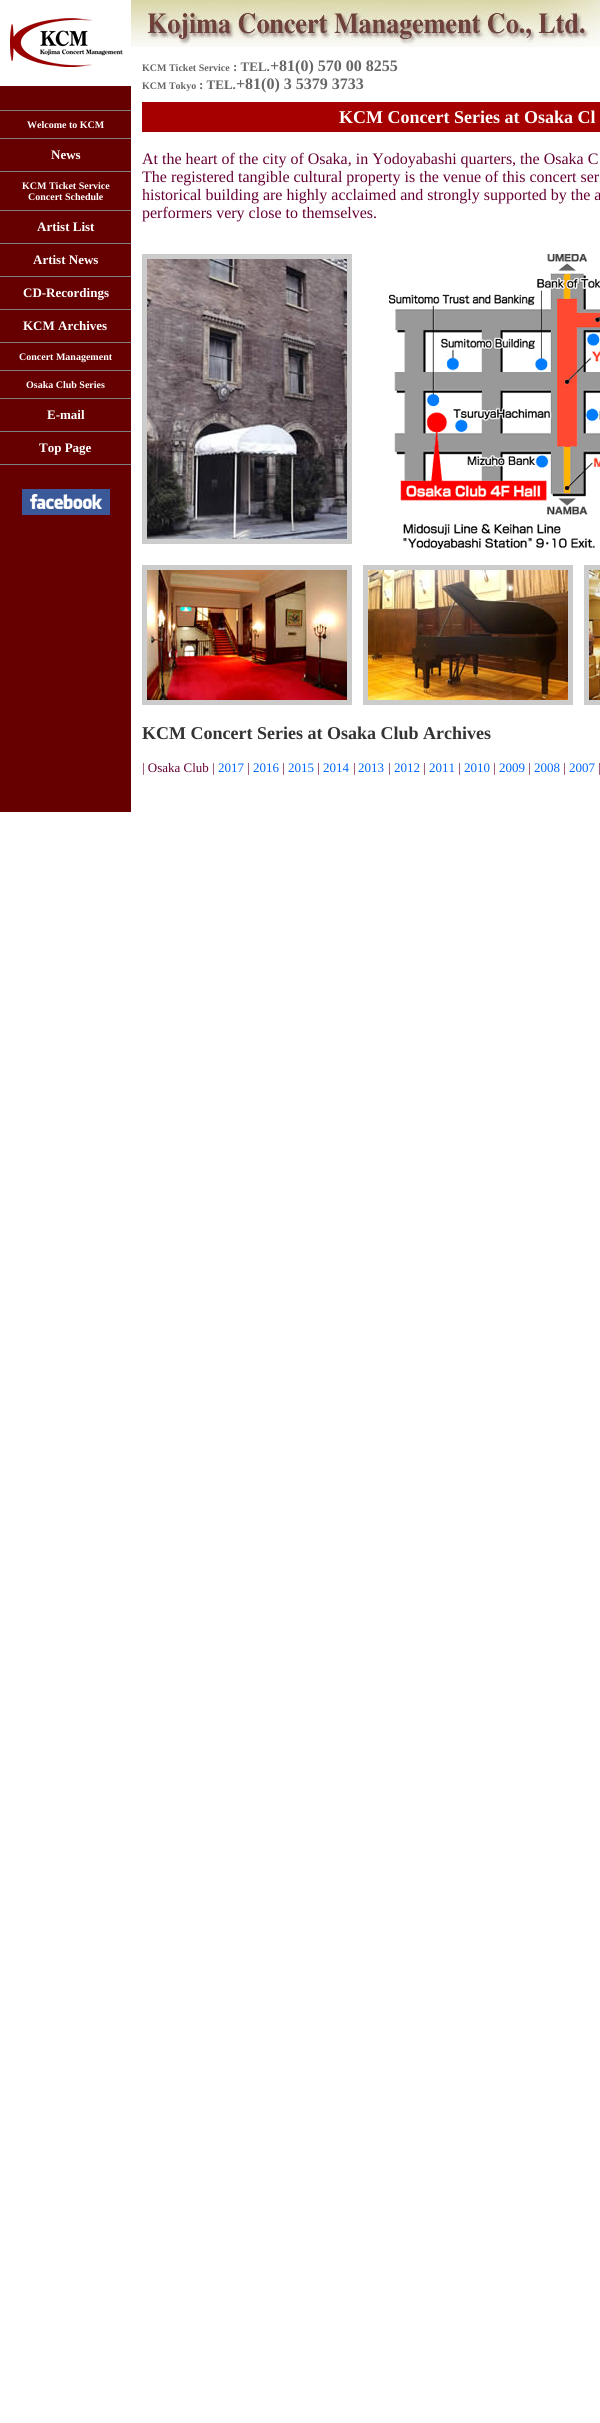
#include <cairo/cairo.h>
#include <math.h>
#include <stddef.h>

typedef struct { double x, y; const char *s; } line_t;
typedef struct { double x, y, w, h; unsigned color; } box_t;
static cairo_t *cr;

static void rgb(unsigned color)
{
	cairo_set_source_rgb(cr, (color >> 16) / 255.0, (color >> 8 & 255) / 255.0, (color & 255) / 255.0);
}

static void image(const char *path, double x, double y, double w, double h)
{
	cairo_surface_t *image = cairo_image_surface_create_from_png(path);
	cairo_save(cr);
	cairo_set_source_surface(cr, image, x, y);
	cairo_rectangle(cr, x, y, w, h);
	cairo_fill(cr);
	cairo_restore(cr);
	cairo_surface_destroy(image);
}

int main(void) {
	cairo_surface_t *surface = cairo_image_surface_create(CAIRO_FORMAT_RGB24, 600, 2423);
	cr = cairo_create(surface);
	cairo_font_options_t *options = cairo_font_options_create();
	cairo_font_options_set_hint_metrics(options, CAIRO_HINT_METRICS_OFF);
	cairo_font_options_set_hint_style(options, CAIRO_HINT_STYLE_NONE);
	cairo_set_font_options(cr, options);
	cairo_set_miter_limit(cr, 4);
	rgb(0xffffff);
	cairo_paint(cr);
	image("img/1.png", 10, 18, 113, 49);
	image("img/2.png", 131, 0, 469, 47);
	{
		static const box_t items[] = {
			{142, 102, 458, 30, 0xa60000},
			{0, 86, 131, 726, 0x660000},
			{0, 110, 131, 1, 0x808080},
			{0, 138, 131, 1, 0x808080},
			{0, 171, 131, 1, 0x808080},
			{0, 210, 131, 1, 0x808080},
			{0, 243, 131, 1, 0x808080},
			{0, 276, 131, 1, 0x808080},
			{0, 309, 131, 1, 0x808080},
			{0, 342, 131, 1, 0x808080},
			{0, 370, 131, 1, 0x808080},
			{0, 398, 131, 1, 0x808080},
			{0, 431, 131, 1, 0x808080},
			{0, 464, 131, 1, 0x808080},
		};
		for (size_t i = 0; i < sizeof items / sizeof *items; i++) {
			rgb(items[i].color);
			cairo_rectangle(cr, items[i].x, items[i].y, items[i].w, items[i].h);
			cairo_fill(cr);
		}
	}
	image("img/3.png", 22, 489, 88, 26);
	rgb(0xcccccc);
	cairo_rectangle(cr, 142, 254, 210, 290);
	cairo_fill(cr);
	image("img/4.png", 147, 259, 200, 280);
	image("img/5.png", 389, 254, 211, 295);
	cairo_rectangle(cr, 142, 565, 210, 140);
	cairo_fill(cr);
	image("img/6.png", 147, 570, 200, 130);
	cairo_rectangle(cr, 363, 565, 210, 140);
	cairo_fill(cr);
	image("img/7.png", 368, 570, 200, 130);
	cairo_rectangle(cr, 584, 565, 16, 140);
	cairo_fill(cr);
	image("img/8.png", 589, 570, 11, 130);
	cairo_select_font_face(cr, "Liberation Serif", CAIRO_FONT_SLANT_NORMAL, CAIRO_FONT_WEIGHT_BOLD);
	cairo_set_font_size(cr, 10);
	rgb(0x666666);
	cairo_move_to(cr, 142, 71);
	cairo_show_text(cr, "KCM Ticket Service");
	cairo_set_font_size(cr, 13);
	cairo_move_to(cr, 233, 71);
	cairo_show_text(cr, ": TEL.");
	cairo_set_font_size(cr, 16);
	cairo_move_to(cr, 270, 71);
	cairo_show_text(cr, "+81(0) 570 00 8255");
	cairo_set_font_size(cr, 10);
	cairo_move_to(cr, 142, 89);
	cairo_show_text(cr, "KCM Tokyo");
	cairo_set_font_size(cr, 13);
	cairo_move_to(cr, 199, 89);
	cairo_show_text(cr, ": TEL.");
	cairo_set_font_size(cr, 16);
	cairo_move_to(cr, 236, 89);
	cairo_show_text(cr, "+81(0) 3 5379 3733");
	cairo_set_font_size(cr, 18);
	rgb(0xffffff);
	cairo_move_to(cr, 339, 123);
	cairo_show_text(cr, "KCM Concert Series at Osaka Cl");
	cairo_set_font_size(cr, 10);
	cairo_move_to(cr, 27, 128);
	cairo_show_text(cr, "Welcome to KCM");
	cairo_set_font_size(cr, 13);
	cairo_move_to(cr, 51, 159);
	cairo_show_text(cr, "News");
	cairo_set_font_size(cr, 10);
	cairo_move_to(cr, 22, 189);
	cairo_show_text(cr, "KCM Ticket Service");
	cairo_move_to(cr, 28, 200);
	cairo_show_text(cr, "Concert Schedule");
	cairo_set_font_size(cr, 13);
	{
		static const line_t items[] = {
			{37, 231, "Artist List"},
			{33, 264, "Artist News"},
			{23, 297, "CD-Recordings"},
			{23, 330, "KCM Archives"},
		};
		for (size_t i = 0; i < sizeof items / sizeof *items; i++) {
			cairo_move_to(cr, items[i].x, items[i].y);
			cairo_show_text(cr, items[i].s);
		}
	}
	cairo_set_font_size(cr, 10);
	cairo_move_to(cr, 19, 360);
	cairo_show_text(cr, "Concert Management");
	cairo_move_to(cr, 26, 388);
	cairo_show_text(cr, "Osaka Club Series");
	cairo_set_font_size(cr, 13);
	cairo_move_to(cr, 47, 419);
	cairo_show_text(cr, "E-mail");
	cairo_move_to(cr, 39, 452);
	cairo_show_text(cr, "Top Page");
	cairo_select_font_face(cr, "Liberation Serif", CAIRO_FONT_SLANT_NORMAL, CAIRO_FONT_WEIGHT_NORMAL);
	cairo_set_font_size(cr, 16);
	rgb(0x660033);
	{
		static const line_t items[] = {
			{142, 164, "At the heart of the city of Osaka, in Yodoyabashi quarters, the Osaka C"},
			{142, 182, "The registered tangible cultural property is the venue of this concert ser"},
			{142, 200, "historical building are highly acclaimed and strongly supported by the a"},
			{142, 218, "performers very close to themselves."},
		};
		for (size_t i = 0; i < sizeof items / sizeof *items; i++) {
			cairo_move_to(cr, items[i].x, items[i].y);
			cairo_show_text(cr, items[i].s);
		}
	}
	cairo_select_font_face(cr, "Liberation Serif", CAIRO_FONT_SLANT_NORMAL, CAIRO_FONT_WEIGHT_BOLD);
	cairo_set_font_size(cr, 18);
	rgb(0x333333);
	cairo_move_to(cr, 142, 739);
	cairo_show_text(cr, "KCM Concert Series at Osaka Club Archives");
	cairo_select_font_face(cr, "Liberation Serif", CAIRO_FONT_SLANT_NORMAL, CAIRO_FONT_WEIGHT_NORMAL);
	cairo_set_font_size(cr, 13);
	rgb(0x660033);
	cairo_move_to(cr, 142, 772);
	cairo_show_text(cr, "| Osaka Club |");
	rgb(0x0066ff);
	cairo_move_to(cr, 218, 772);
	cairo_show_text(cr, "2017");
	rgb(0x660033);
	cairo_move_to(cr, 247, 772);
	cairo_show_text(cr, "|");
	rgb(0x0066ff);
	cairo_move_to(cr, 253, 772);
	cairo_show_text(cr, "2016");
	rgb(0x660033);
	cairo_move_to(cr, 282, 772);
	cairo_show_text(cr, "|");
	rgb(0x0066ff);
	cairo_move_to(cr, 288, 772);
	cairo_show_text(cr, "2015");
	rgb(0x660033);
	cairo_move_to(cr, 317, 772);
	cairo_show_text(cr, "|");
	rgb(0x0066ff);
	cairo_move_to(cr, 323, 772);
	cairo_show_text(cr, "2014");
	rgb(0x660033);
	cairo_move_to(cr, 353, 772);
	cairo_show_text(cr, "|");
	rgb(0x0066ff);
	cairo_move_to(cr, 358, 772);
	cairo_show_text(cr, "2013");
	rgb(0x660033);
	cairo_move_to(cr, 388, 772);
	cairo_show_text(cr, "|");
	rgb(0x0066ff);
	cairo_move_to(cr, 394, 772);
	cairo_show_text(cr, "2012");
	rgb(0x660033);
	cairo_move_to(cr, 423, 772);
	cairo_show_text(cr, "|");
	rgb(0x0066ff);
	cairo_move_to(cr, 429, 772);
	cairo_show_text(cr, "2011");
	rgb(0x660033);
	cairo_move_to(cr, 458, 772);
	cairo_show_text(cr, "|");
	rgb(0x0066ff);
	cairo_move_to(cr, 464, 772);
	cairo_show_text(cr, "2010");
	rgb(0x660033);
	cairo_move_to(cr, 493, 772);
	cairo_show_text(cr, "|");
	rgb(0x0066ff);
	cairo_move_to(cr, 499, 772);
	cairo_show_text(cr, "2009");
	rgb(0x660033);
	cairo_move_to(cr, 528, 772);
	cairo_show_text(cr, "|");
	rgb(0x0066ff);
	cairo_move_to(cr, 534, 772);
	cairo_show_text(cr, "2008");
	rgb(0x660033);
	cairo_move_to(cr, 563, 772);
	cairo_show_text(cr, "|");
	rgb(0x0066ff);
	cairo_move_to(cr, 569, 772);
	cairo_show_text(cr, "2007");
	rgb(0x660033);
	cairo_move_to(cr, 598, 772);
	cairo_show_text(cr, "|");
	cairo_surface_write_to_png(surface, "page.png");
	cairo_font_options_destroy(options);
	cairo_destroy(cr);
	cairo_surface_destroy(surface);
	return 0;
}
